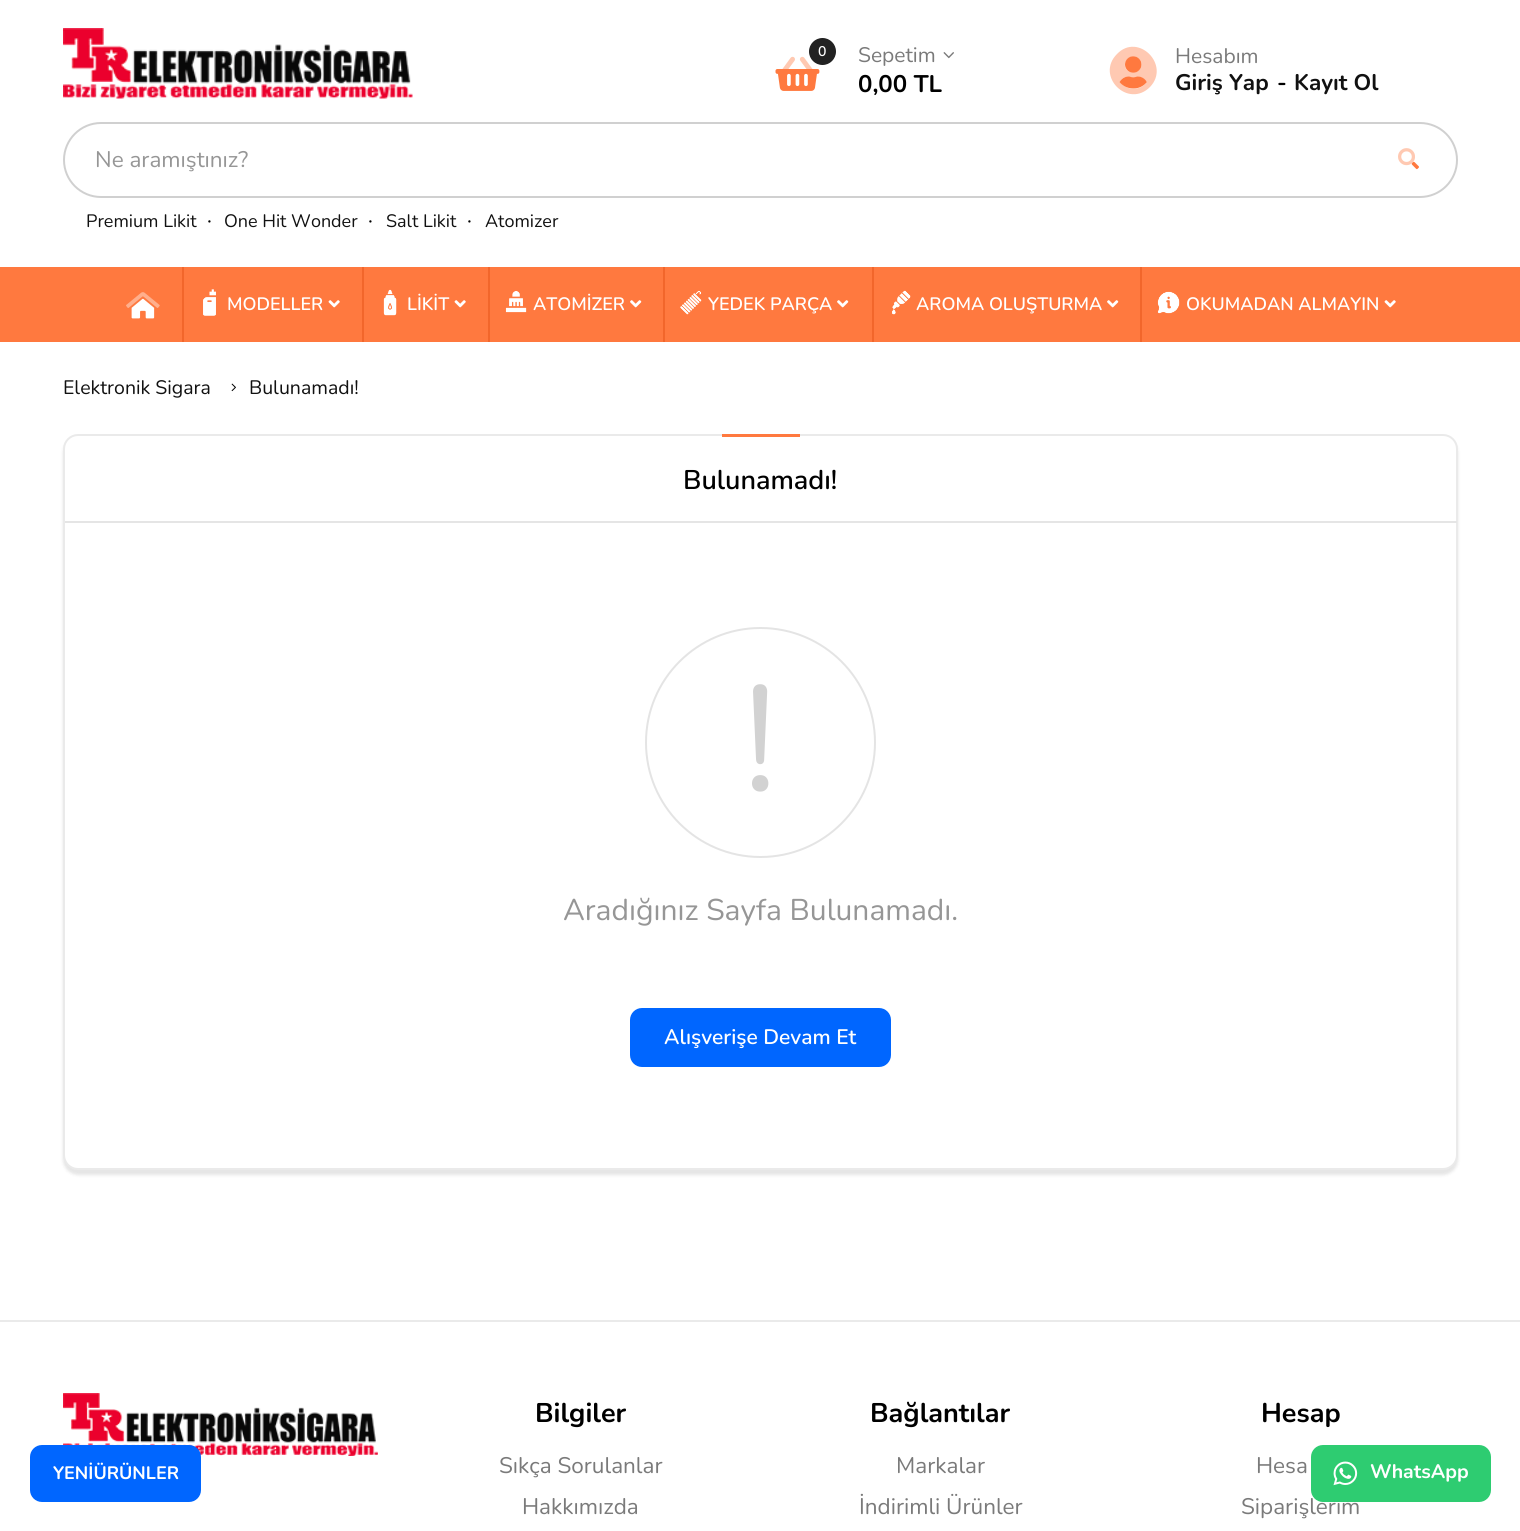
#include <cairo/cairo.h>
#include <math.h>
#include <stddef.h>

typedef struct { double x, y; const char *s; } line_t;
static cairo_t *cr;

static void rgb(unsigned color)
{
	cairo_set_source_rgb(cr, (color >> 16) / 255.0, (color >> 8 & 255) / 255.0, (color & 255) / 255.0);
}

static void rrect(double x, double y, double w, double h, double r)
{
	cairo_new_sub_path(cr);
	cairo_arc(cr, x + w - r, y + h - r, r, 0, M_PI / 2);
	cairo_arc(cr, x + r, y + h - r, r, M_PI / 2, M_PI);
	cairo_arc(cr, x + r, y + r, r, M_PI, 1.5 * M_PI);
	cairo_arc(cr, x + w - r, y + r, r, 1.5 * M_PI, 2 * M_PI);
	cairo_close_path(cr);
}

static void soft_shadow(double x, double y, double w, double h, double r, double blur, double alpha)
{
	cairo_push_group_with_content(cr, CAIRO_CONTENT_ALPHA);
	cairo_set_operator(cr, CAIRO_OPERATOR_SOURCE);
	for (int i = 15; i >= -15 && fmin(w, h) + blur * i / 3 > 0; i -= 2) {
		double e = blur * i / 6;
		cairo_set_source_rgba(cr, 0, 0, 0, alpha * erfc((i - 1) / 8.5) / 2);
		rrect(x - e, y - e, w + 2 * e, h + 2 * e, fmax(0, fmin(r + e + blur * .6, fmin(w, h) / 2 + e)));
		cairo_fill(cr);
	}
	cairo_pattern_t *soft = cairo_pop_group(cr);
	cairo_mask(cr, soft);
	cairo_pattern_destroy(soft);
}

static void image(const char *path, double x, double y, double w, double h)
{
	cairo_surface_t *image = cairo_image_surface_create_from_png(path);
	cairo_save(cr);
	cairo_set_source_surface(cr, image, x, y);
	cairo_rectangle(cr, x, y, w, h);
	cairo_fill(cr);
	cairo_restore(cr);
	cairo_surface_destroy(image);
}

int main(void) {
	cairo_surface_t *surface = cairo_image_surface_create(CAIRO_FORMAT_RGB24, 1520, 1531);
	cr = cairo_create(surface);
	cairo_font_options_t *options = cairo_font_options_create();
	cairo_font_options_set_hint_metrics(options, CAIRO_HINT_METRICS_OFF);
	cairo_font_options_set_hint_style(options, CAIRO_HINT_STYLE_NONE);
	cairo_set_font_options(cr, options);
	cairo_set_miter_limit(cr, 4);
	rgb(0xffffff);
	cairo_paint(cr);
	image("img/1.png", 63, 28, 350, 71);
	image("img/2.png", 782, 56, 31, 13);
	image("img/3.png", 775, 69, 45, 22);
	rgb(0x222222);
	cairo_arc(cr, 822.5, 51.5, 15, 0, 2 * M_PI);
	cairo_fill_preserve(cr);
	rgb(0xffffff);
	cairo_set_line_width(cr, 3);
	cairo_stroke(cr);
	image("img/4.png", 943, 52, 11, 7);
	image("img/5.png", 1119, 56, 28, 33);
	cairo_set_source_rgba(cr, 1, 0.475, 0.247, 0.4);
	cairo_new_path(cr);
	cairo_move_to(cr, 1117, 54);
	cairo_curve_to(cr, 1138, 32, 1171, 65, 1150, 87);
	cairo_curve_to(cr, 1128, 109, 1095, 76, 1117, 54);
	cairo_close_path(cr);
	cairo_move_to(cr, 1139, 59);
	cairo_curve_to(cr, 1132, 51, 1120, 63, 1127, 70);
	cairo_curve_to(cr, 1135, 78, 1147, 66, 1139, 59);
	cairo_close_path(cr);
	cairo_move_to(cr, 1120, 82);
	cairo_curve_to(cr, 1127, 91, 1140, 91, 1147, 82);
	cairo_curve_to(cr, 1145, 79, 1141, 76, 1137, 77);
	cairo_line_to(cr, 1133, 77);
	cairo_line_to(cr, 1129, 77);
	cairo_curve_to(cr, 1125, 76, 1121, 79, 1120, 82);
	cairo_close_path(cr);
	cairo_fill(cr);
	rrect(64, 123, 1393, 74, 37);
	rgb(0xd0d0d0);
	cairo_set_line_width(cr, 2);
	cairo_stroke(cr);
	image("img/7.png", 1411, 161, 8, 9);
	image("img/6.png", 1398, 148, 17, 18);
	rgb(0xff793f);
	cairo_rectangle(cr, 0, 267, 1520, 75);
	cairo_fill(cr);
	rgb(0xf2662b);
	cairo_rectangle(cr, 182, 267, 2, 75);
	cairo_fill(cr);
	image("img/9.png", 131, 298, 24, 21);
	image("img/8.png", 126, 292, 34, 16);
	cairo_rectangle(cr, 362, 267, 2, 75);
	cairo_fill(cr);
	image("img/10.png", 203, 289, 13, 27);
	image("img/11.png", 328, 300, 12, 8);
	cairo_rectangle(cr, 488, 267, 2, 75);
	cairo_fill(cr);
	image("img/12.png", 383, 289, 14, 27);
	image("img/11.png", 454, 300, 12, 8);
	cairo_rectangle(cr, 663, 267, 2, 75);
	cairo_fill(cr);
	image("img/13.png", 505, 290, 22, 23);
	image("img/14.png", 630, 300, 12, 8);
	cairo_rectangle(cr, 872, 267, 2, 75);
	cairo_fill(cr);
	image("img/15.png", 680, 290, 22, 25);
	image("img/14.png", 837, 300, 12, 8);
	cairo_rectangle(cr, 1140, 267, 2, 75);
	cairo_fill(cr);
	image("img/16.png", 892, 290, 19, 25);
	image("img/14.png", 1107, 300, 12, 8);
	image("img/17.png", 1157, 291, 23, 23);
	image("img/11.png", 1384, 300, 12, 8);
	image("img/18.png", 231, 383, 5, 9);
	rgb(0x000000);
	soft_shadow(63, 438, 1395, 737, 15, 1.5, 0.1);
	rgb(0xffffff);
	rrect(64, 435, 1393, 734, 14);
	cairo_fill_preserve(cr);
	rgb(0xeaeaea);
	cairo_stroke(cr);
	rgb(0xe5e5e5);
	cairo_rectangle(cr, 65, 521, 1392, 2);
	cairo_fill(cr);
	rgb(0xff793f);
	cairo_rectangle(cr, 722, 434, 78, 3);
	cairo_fill(cr);
	cairo_arc(cr, 760.5, 742.5, 114.5, 0, 2 * M_PI);
	rgb(0xe4e4e4);
	cairo_stroke(cr);
	rgb(0x0066ff);
	rrect(631, 1009, 259, 57, 11);
	cairo_fill_preserve(cr);
	cairo_stroke(cr);
	image("img/19.png", 63, 1393, 315, 63);
	rrect(30, 1445, 171, 57, 12);
	cairo_fill(cr);
	rgb(0xeaeaea);
	cairo_rectangle(cr, 0, 1320, 1520, 2);
	cairo_fill(cr);
	cairo_select_font_face(cr, "Nunito SemiBold", CAIRO_FONT_SLANT_NORMAL, CAIRO_FONT_WEIGHT_NORMAL);
	cairo_set_font_size(cr, 14);
	rgb(0xffffff);
	cairo_move_to(cr, 818, 56);
	cairo_show_text(cr, "0");
	cairo_select_font_face(cr, "Nunito", CAIRO_FONT_SLANT_NORMAL, CAIRO_FONT_WEIGHT_NORMAL);
	cairo_set_font_size(cr, 21);
	rgb(0x7a7a7a);
	cairo_move_to(cr, 858, 62);
	cairo_show_text(cr, "Sepetim");
	cairo_select_font_face(cr, "Nunito", CAIRO_FONT_SLANT_NORMAL, CAIRO_FONT_WEIGHT_BOLD);
	cairo_set_font_size(cr, 24);
	rgb(0x000000);
	cairo_move_to(cr, 858, 92);
	cairo_show_text(cr, "0,00 TL");
	cairo_select_font_face(cr, "Nunito", CAIRO_FONT_SLANT_NORMAL, CAIRO_FONT_WEIGHT_NORMAL);
	cairo_set_font_size(cr, 21);
	rgb(0x7a7a7a);
	cairo_move_to(cr, 1175, 63);
	cairo_show_text(cr, "Hesabım");
	cairo_select_font_face(cr, "Nunito", CAIRO_FONT_SLANT_NORMAL, CAIRO_FONT_WEIGHT_BOLD);
	cairo_set_font_size(cr, 22.5);
	rgb(0x111111);
	cairo_move_to(cr, 1175, 90);
	cairo_show_text(cr, "Giriş Yap");
	rgb(0x000000);
	cairo_move_to(cr, 1277, 90);
	cairo_show_text(cr, "-");
	rgb(0x111111);
	cairo_move_to(cr, 1294, 90);
	cairo_show_text(cr, "Kayıt Ol");
	cairo_select_font_face(cr, "Nunito", CAIRO_FONT_SLANT_NORMAL, CAIRO_FONT_WEIGHT_NORMAL);
	rgb(0x969696);
	cairo_move_to(cr, 95, 167);
	cairo_show_text(cr, "Ne aramıştınız?");
	cairo_set_font_size(cr, 18);
	rgb(0x111111);
	cairo_move_to(cr, 86, 227);
	cairo_show_text(cr, "Premium Likit");
	cairo_set_font_size(cr, 21);
	rgb(0x000000);
	cairo_move_to(cr, 207, 227);
	cairo_show_text(cr, "·");
	cairo_set_font_size(cr, 18);
	rgb(0x111111);
	cairo_move_to(cr, 224, 227);
	cairo_show_text(cr, "One Hit Wonder");
	cairo_set_font_size(cr, 21);
	rgb(0x000000);
	cairo_move_to(cr, 368, 227);
	cairo_show_text(cr, "·");
	cairo_set_font_size(cr, 18);
	rgb(0x111111);
	cairo_move_to(cr, 386, 227);
	cairo_show_text(cr, "Salt Likit");
	cairo_set_font_size(cr, 21);
	rgb(0x000000);
	cairo_move_to(cr, 467, 227);
	cairo_show_text(cr, "·");
	cairo_set_font_size(cr, 18);
	rgb(0x111111);
	cairo_move_to(cr, 485, 227);
	cairo_show_text(cr, "Atomizer");
	cairo_select_font_face(cr, "Nunito SemiBold", CAIRO_FONT_SLANT_NORMAL, CAIRO_FONT_WEIGHT_NORMAL);
	rgb(0xffffff);
	{
		static const line_t items[] = {
			{227, 310, "MODELLER"},
			{407, 310, "LİKİT"},
			{533, 310, "ATOMİZER"},
			{708, 310, "YEDEK PARÇA"},
			{916, 310, "AROMA OLUŞTURMA"},
			{1186, 310, "OKUMADAN ALMAYIN"},
		};
		for (size_t i = 0; i < sizeof items / sizeof *items; i++) {
			cairo_move_to(cr, items[i].x, items[i].y);
			cairo_show_text(cr, items[i].s);
		}
	}
	cairo_select_font_face(cr, "Nunito", CAIRO_FONT_SLANT_NORMAL, CAIRO_FONT_WEIGHT_NORMAL);
	cairo_set_font_size(cr, 19.5);
	rgb(0x111111);
	cairo_move_to(cr, 63, 394);
	cairo_show_text(cr, "Elektronik Sigara");
	cairo_move_to(cr, 249, 394);
	cairo_show_text(cr, "Bulunamadı!");
	cairo_select_font_face(cr, "Nunito SemiBold", CAIRO_FONT_SLANT_NORMAL, CAIRO_FONT_WEIGHT_NORMAL);
	cairo_set_font_size(cr, 27);
	rgb(0x000000);
	cairo_move_to(cr, 683, 489);
	cairo_show_text(cr, "Bulunamadı!");
	cairo_select_font_face(cr, "Nunito", CAIRO_FONT_SLANT_NORMAL, CAIRO_FONT_WEIGHT_NORMAL);
	cairo_set_font_size(cr, 150);
	rgb(0xd2d2d2);
	cairo_move_to(cr, 743, 791);
	cairo_show_text(cr, "!");
	cairo_set_font_size(cr, 30);
	rgb(0x969696);
	cairo_move_to(cr, 563, 920);
	cairo_show_text(cr, "Aradığınız Sayfa Bulunamadı.");
	cairo_select_font_face(cr, "Nunito SemiBold", CAIRO_FONT_SLANT_NORMAL, CAIRO_FONT_WEIGHT_NORMAL);
	cairo_set_font_size(cr, 21);
	rgb(0xffffff);
	cairo_move_to(cr, 664, 1044);
	cairo_show_text(cr, "Alışverişe Devam Et");
	cairo_select_font_face(cr, "Nunito", CAIRO_FONT_SLANT_NORMAL, CAIRO_FONT_WEIGHT_BOLD);
	cairo_set_font_size(cr, 18);
	cairo_move_to(cr, 53, 1479);
	cairo_show_text(cr, "YENİÜRÜNLER");
	cairo_set_font_size(cr, 27);
	rgb(0x000000);
	cairo_move_to(cr, 535, 1422);
	cairo_show_text(cr, "Bilgiler");
	cairo_select_font_face(cr, "Nunito", CAIRO_FONT_SLANT_NORMAL, CAIRO_FONT_WEIGHT_NORMAL);
	cairo_set_font_size(cr, 22.5);
	rgb(0x7a7a7a);
	cairo_move_to(cr, 499, 1473);
	cairo_show_text(cr, "Sıkça Sorulanlar");
	cairo_move_to(cr, 522, 1514);
	cairo_show_text(cr, "Hakkımızda");
	cairo_select_font_face(cr, "Nunito", CAIRO_FONT_SLANT_NORMAL, CAIRO_FONT_WEIGHT_BOLD);
	cairo_set_font_size(cr, 27);
	rgb(0x000000);
	cairo_move_to(cr, 870, 1422);
	cairo_show_text(cr, "Bağlantılar");
	cairo_select_font_face(cr, "Nunito", CAIRO_FONT_SLANT_NORMAL, CAIRO_FONT_WEIGHT_NORMAL);
	cairo_set_font_size(cr, 22.5);
	rgb(0x7a7a7a);
	cairo_move_to(cr, 896, 1473);
	cairo_show_text(cr, "Markalar");
	cairo_move_to(cr, 859, 1514);
	cairo_show_text(cr, "İndirimli Ürünler");
	cairo_select_font_face(cr, "Nunito", CAIRO_FONT_SLANT_NORMAL, CAIRO_FONT_WEIGHT_BOLD);
	cairo_set_font_size(cr, 27);
	rgb(0x000000);
	cairo_move_to(cr, 1261, 1422);
	cairo_show_text(cr, "Hesap");
	cairo_select_font_face(cr, "Nunito", CAIRO_FONT_SLANT_NORMAL, CAIRO_FONT_WEIGHT_NORMAL);
	cairo_set_font_size(cr, 22.5);
	rgb(0x7a7a7a);
	cairo_move_to(cr, 1256, 1473);
	cairo_show_text(cr, "Hesa");
	cairo_move_to(cr, 1241, 1514);
	cairo_show_text(cr, "Siparişlerim");
	rgb(0x2ecc71);
	rrect(1311, 1445, 180, 57, 12);
	cairo_fill(cr);
	image("img/20.png", 1333, 1461, 25, 25);
	cairo_select_font_face(cr, "Nunito", CAIRO_FONT_SLANT_NORMAL, CAIRO_FONT_WEIGHT_BOLD);
	cairo_set_font_size(cr, 19.5);
	rgb(0xffffff);
	cairo_move_to(cr, 1370, 1478);
	cairo_show_text(cr, "WhatsApp");
	cairo_surface_write_to_png(surface, "page.png");
	cairo_font_options_destroy(options);
	cairo_destroy(cr);
	cairo_surface_destroy(surface);
	return 0;
}
